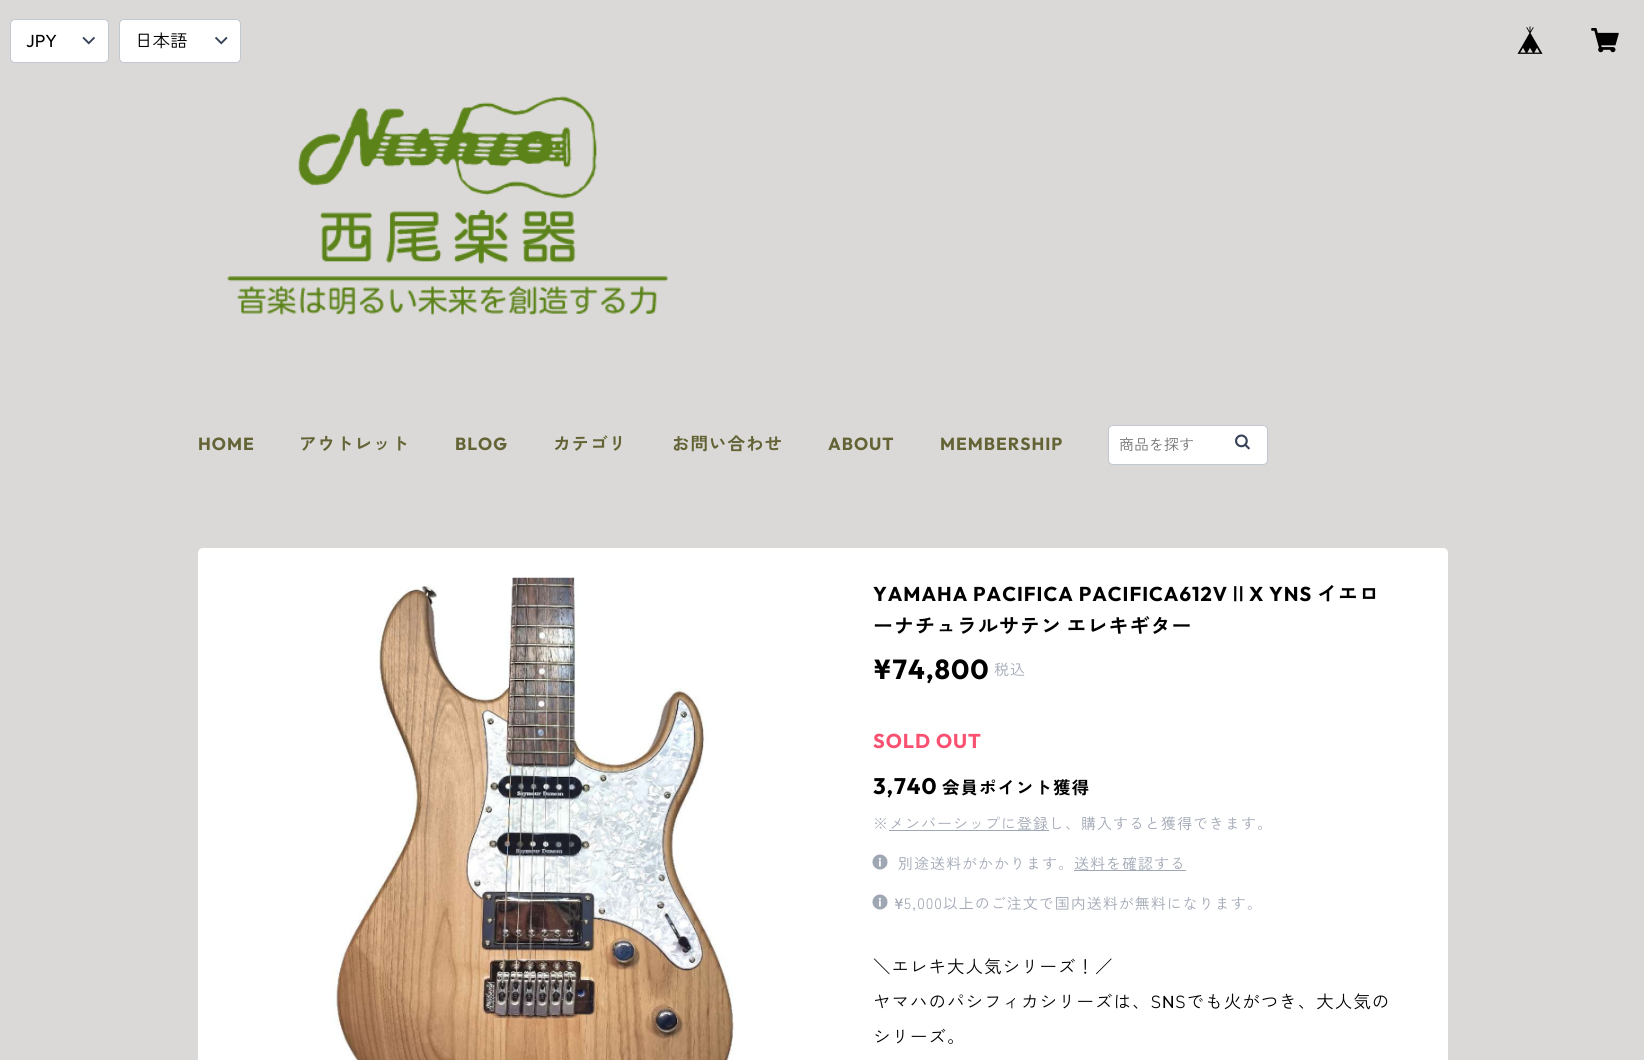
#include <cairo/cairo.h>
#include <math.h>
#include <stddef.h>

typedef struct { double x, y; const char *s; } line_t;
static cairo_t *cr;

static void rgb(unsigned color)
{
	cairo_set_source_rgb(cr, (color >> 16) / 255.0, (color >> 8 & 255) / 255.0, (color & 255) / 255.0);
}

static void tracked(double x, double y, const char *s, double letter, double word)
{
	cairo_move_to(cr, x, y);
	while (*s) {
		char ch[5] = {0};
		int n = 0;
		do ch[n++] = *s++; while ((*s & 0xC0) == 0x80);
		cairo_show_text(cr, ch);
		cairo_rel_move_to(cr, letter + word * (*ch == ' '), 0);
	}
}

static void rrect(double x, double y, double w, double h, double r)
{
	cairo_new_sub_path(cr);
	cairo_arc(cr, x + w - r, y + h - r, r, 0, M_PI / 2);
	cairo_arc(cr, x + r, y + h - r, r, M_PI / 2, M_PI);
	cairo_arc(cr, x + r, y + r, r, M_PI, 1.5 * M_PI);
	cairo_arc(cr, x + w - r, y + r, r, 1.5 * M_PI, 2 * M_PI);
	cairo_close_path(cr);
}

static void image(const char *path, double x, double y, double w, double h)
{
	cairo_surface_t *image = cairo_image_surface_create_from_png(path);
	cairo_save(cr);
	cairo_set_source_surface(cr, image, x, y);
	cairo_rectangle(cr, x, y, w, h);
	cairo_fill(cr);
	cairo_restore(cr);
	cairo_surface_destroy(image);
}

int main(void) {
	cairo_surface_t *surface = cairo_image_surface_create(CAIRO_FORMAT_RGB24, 1644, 1060);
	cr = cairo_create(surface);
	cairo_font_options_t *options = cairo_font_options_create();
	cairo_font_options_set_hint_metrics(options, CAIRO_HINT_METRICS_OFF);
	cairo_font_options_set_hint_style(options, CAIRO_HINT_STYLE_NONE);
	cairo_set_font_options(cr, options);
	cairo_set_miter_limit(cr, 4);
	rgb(0xdbd9d7);
	cairo_paint(cr);
	rgb(0xffffff);
	rrect(10.5, 19.5, 98, 43, 4.5);
	cairo_fill_preserve(cr);
	rgb(0xc2c8d2);
	cairo_set_line_width(cr, 1);
	cairo_stroke(cr);
	image("img/1.png", 82, 36, 13, 9);
	rgb(0xffffff);
	rrect(119.5, 19.5, 121, 43, 4.5);
	cairo_fill_preserve(cr);
	rgb(0xc2c8d2);
	cairo_stroke(cr);
	image("img/2.png", 215, 36, 13, 9);
	image("img/3.png", 1517, 26, 26, 28);
	image("img/4.png", 1591, 28, 28, 25);
	image("img/5.png", 227, 96, 441, 220);
	rgb(0xffffff);
	rrect(1108.5, 425.5, 159, 39, 4.5);
	cairo_fill_preserve(cr);
	rgb(0xc2c8d2);
	cairo_stroke(cr);
	image("img/6.png", 1235, 434, 15, 16);
	rgb(0xffffff);
	rrect(198, 548, 1250, 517, 5);
	cairo_fill(cr);
	image("img/7.png", 332, 577, 402, 483);
	rgb(0xa0a7b4);
	cairo_rectangle(cr, 889, 830, 160, 1);
	cairo_fill(cr);
	image("img/8.png", 872, 854, 16, 16);
	cairo_rectangle(cr, 1074, 870, 112, 1);
	cairo_fill(cr);
	image("img/8.png", 872, 894, 16, 16);
	cairo_select_font_face(cr, "Outfit", CAIRO_FONT_SLANT_NORMAL, CAIRO_FONT_WEIGHT_NORMAL);
	cairo_set_font_size(cr, 17.5);
	rgb(0x000000);
	cairo_move_to(cr, 26, 47);
	cairo_show_text(cr, "JPY");
	cairo_select_font_face(cr, "Zen Kaku Gothic New", CAIRO_FONT_SLANT_NORMAL, CAIRO_FONT_WEIGHT_NORMAL);
	cairo_move_to(cr, 135, 47);
	cairo_show_text(cr, "日本語");
	cairo_select_font_face(cr, "Outfit", CAIRO_FONT_SLANT_NORMAL, CAIRO_FONT_WEIGHT_BOLD);
	rgb(0x636336);
	tracked(198, 450, "HOME", 1, 0);
	cairo_select_font_face(cr, "Zen Kaku Gothic New", CAIRO_FONT_SLANT_NORMAL, CAIRO_FONT_WEIGHT_BOLD);
	tracked(299, 450, "アウトレット", 1, 0);
	cairo_select_font_face(cr, "Outfit", CAIRO_FONT_SLANT_NORMAL, CAIRO_FONT_WEIGHT_BOLD);
	tracked(455, 450, "BLOG", 1, 0);
	cairo_select_font_face(cr, "Zen Kaku Gothic New", CAIRO_FONT_SLANT_NORMAL, CAIRO_FONT_WEIGHT_BOLD);
	tracked(553, 450, "カテゴリ", 1, 0);
	tracked(672, 450, "お問い合わせ", 1, 0);
	cairo_select_font_face(cr, "Outfit", CAIRO_FONT_SLANT_NORMAL, CAIRO_FONT_WEIGHT_BOLD);
	tracked(828, 450, "ABOUT", 1, 0);
	tracked(940, 450, "MEMBERSHIP", 1, 0);
	cairo_select_font_face(cr, "Zen Kaku Gothic New", CAIRO_FONT_SLANT_NORMAL, CAIRO_FONT_WEIGHT_NORMAL);
	cairo_set_font_size(cr, 15);
	rgb(0x757575);
	cairo_move_to(cr, 1119, 450);
	cairo_show_text(cr, "商品を探す");
	cairo_select_font_face(cr, "Outfit", CAIRO_FONT_SLANT_NORMAL, CAIRO_FONT_WEIGHT_BOLD);
	cairo_set_font_size(cr, 20);
	rgb(0x000000);
	tracked(873, 601, "YAMAHA PACIFICA PACIFICA612V", 1, 0);
	cairo_select_font_face(cr, "WenQuanYi Zen Hei", CAIRO_FONT_SLANT_NORMAL, CAIRO_FONT_WEIGHT_BOLD);
	tracked(1228, 601, "Ⅱ", 1, 0);
	cairo_select_font_face(cr, "Outfit", CAIRO_FONT_SLANT_NORMAL, CAIRO_FONT_WEIGHT_BOLD);
	tracked(1249, 601, "X YNS", 1, 0);
	cairo_select_font_face(cr, "Zen Kaku Gothic New", CAIRO_FONT_SLANT_NORMAL, CAIRO_FONT_WEIGHT_BOLD);
	tracked(1317, 601, "イエロ", 1, 0);
	tracked(873, 633, "ーナチュラルサテン エレキギター", 1, -2);
	cairo_select_font_face(cr, "Outfit", CAIRO_FONT_SLANT_NORMAL, CAIRO_FONT_WEIGHT_BOLD);
	cairo_set_font_size(cr, 27.5);
	tracked(873, 679, "¥74,800", 1, 0);
	cairo_select_font_face(cr, "Zen Kaku Gothic New", CAIRO_FONT_SLANT_NORMAL, CAIRO_FONT_WEIGHT_NORMAL);
	cairo_set_font_size(cr, 15);
	rgb(0xa0a7b4);
	tracked(994, 675, "税込", 1, 0);
	cairo_select_font_face(cr, "Outfit", CAIRO_FONT_SLANT_NORMAL, CAIRO_FONT_WEIGHT_BOLD);
	cairo_set_font_size(cr, 20);
	rgb(0xfa5171);
	tracked(873, 748, "SOLD OUT", 1, 0);
	cairo_set_font_size(cr, 22.5);
	rgb(0x000000);
	tracked(873, 794, "3,740", 1, 0);
	cairo_select_font_face(cr, "Zen Kaku Gothic New", CAIRO_FONT_SLANT_NORMAL, CAIRO_FONT_WEIGHT_BOLD);
	cairo_set_font_size(cr, 17.5);
	tracked(942, 794, "会員ポイント獲得", 1, 0);
	cairo_select_font_face(cr, "Zen Kaku Gothic New", CAIRO_FONT_SLANT_NORMAL, CAIRO_FONT_WEIGHT_NORMAL);
	cairo_set_font_size(cr, 15);
	rgb(0xa0a7b4);
	{
		static const line_t items[] = {
			{873, 829, "※"},
			{889, 829, "メンバーシップに登録し、購入すると獲得できます。"},
			{898, 869, "別途送料がかかります。"},
			{1074, 869, "送料を確認する"},
		};
		for (size_t i = 0; i < sizeof items / sizeof *items; i++) {
			tracked(items[i].x, items[i].y, items[i].s, 1, 0);
		}
	}
	cairo_select_font_face(cr, "Outfit", CAIRO_FONT_SLANT_NORMAL, CAIRO_FONT_WEIGHT_NORMAL);
	tracked(894, 909, "¥", 1, 0);
	cairo_select_font_face(cr, "Zen Kaku Gothic New", CAIRO_FONT_SLANT_NORMAL, CAIRO_FONT_WEIGHT_NORMAL);
	tracked(904, 909, "5,000以上のご注文で国内送料が無料になります。", 1, 0);
	cairo_set_font_size(cr, 17.5);
	rgb(0x000000);
	tracked(873, 973, "＼エレキ大人気シリーズ！／", 1, 0);
	tracked(873, 1008, "ヤマハのパシフィカシリーズは、S", 1, 0);
	cairo_select_font_face(cr, "Outfit", CAIRO_FONT_SLANT_NORMAL, CAIRO_FONT_WEIGHT_NORMAL);
	tracked(1162, 1008, "N", 1, 0);
	cairo_select_font_face(cr, "Zen Kaku Gothic New", CAIRO_FONT_SLANT_NORMAL, CAIRO_FONT_WEIGHT_NORMAL);
	tracked(1175, 1008, "Sでも火がつき、大人気の", 1, 0);
	tracked(873, 1043, "シリーズ。", 1, 0);
	cairo_surface_write_to_png(surface, "page.png");
	cairo_font_options_destroy(options);
	cairo_destroy(cr);
	cairo_surface_destroy(surface);
	return 0;
}
